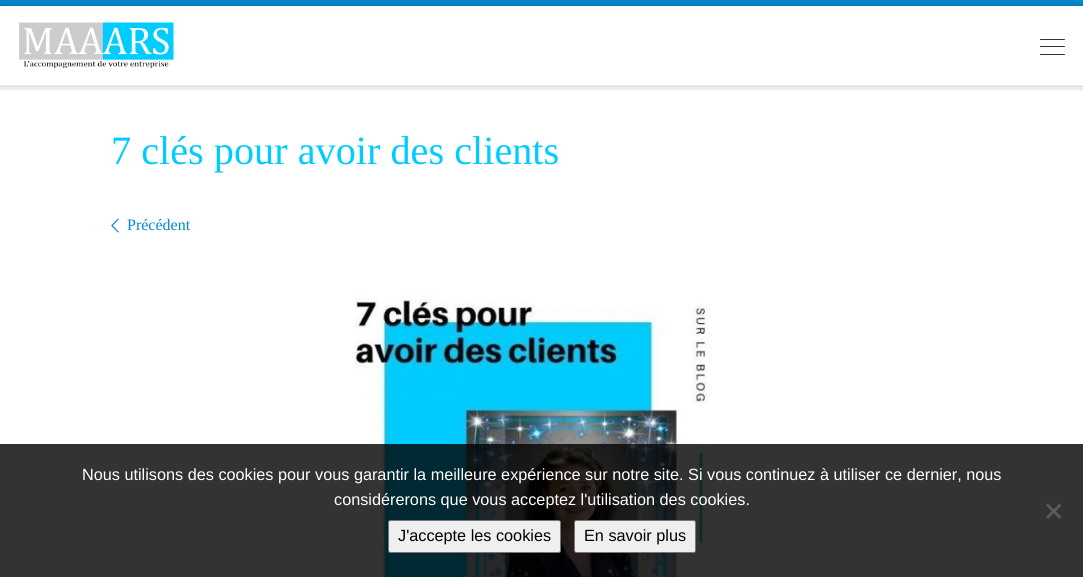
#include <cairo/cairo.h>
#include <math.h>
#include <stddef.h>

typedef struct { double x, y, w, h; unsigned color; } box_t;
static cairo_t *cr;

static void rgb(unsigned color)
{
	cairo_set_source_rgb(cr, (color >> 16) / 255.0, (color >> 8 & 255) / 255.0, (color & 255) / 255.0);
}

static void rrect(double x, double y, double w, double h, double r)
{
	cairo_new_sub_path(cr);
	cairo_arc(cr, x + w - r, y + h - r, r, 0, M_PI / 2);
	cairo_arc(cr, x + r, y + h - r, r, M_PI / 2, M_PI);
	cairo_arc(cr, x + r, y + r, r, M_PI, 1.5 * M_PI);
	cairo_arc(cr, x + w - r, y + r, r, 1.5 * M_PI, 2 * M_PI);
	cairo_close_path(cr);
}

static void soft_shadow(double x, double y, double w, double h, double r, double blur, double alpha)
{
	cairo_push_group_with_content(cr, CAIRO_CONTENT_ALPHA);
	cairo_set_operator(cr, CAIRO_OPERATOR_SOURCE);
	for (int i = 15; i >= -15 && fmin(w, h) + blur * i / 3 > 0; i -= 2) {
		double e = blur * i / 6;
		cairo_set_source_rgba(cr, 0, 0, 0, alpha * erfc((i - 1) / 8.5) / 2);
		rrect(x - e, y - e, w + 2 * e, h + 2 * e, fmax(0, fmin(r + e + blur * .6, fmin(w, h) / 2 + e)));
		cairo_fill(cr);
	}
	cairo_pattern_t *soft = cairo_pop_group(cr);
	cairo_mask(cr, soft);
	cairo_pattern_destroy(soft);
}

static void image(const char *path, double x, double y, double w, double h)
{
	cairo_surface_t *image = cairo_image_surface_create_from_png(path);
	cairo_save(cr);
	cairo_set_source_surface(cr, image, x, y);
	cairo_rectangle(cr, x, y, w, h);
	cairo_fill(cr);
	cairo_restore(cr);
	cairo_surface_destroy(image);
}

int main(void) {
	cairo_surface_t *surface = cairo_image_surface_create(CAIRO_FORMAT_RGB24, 1083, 577);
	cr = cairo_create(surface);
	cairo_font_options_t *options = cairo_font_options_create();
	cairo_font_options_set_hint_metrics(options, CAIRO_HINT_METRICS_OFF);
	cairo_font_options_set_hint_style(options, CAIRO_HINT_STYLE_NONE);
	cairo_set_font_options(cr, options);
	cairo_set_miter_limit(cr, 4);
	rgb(0xffffff);
	cairo_paint(cr);
	rgb(0x666666);
	soft_shadow(0, 3, 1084, 87, 0, 1, 0.08);
	{
		static const box_t items[] = {
			{0, 87, 1083, 1, 0xffffff},
			{0, 0, 1083, 6, 0x0088cc},
			{0, 86, 1083, 1, 0xececec},
		};
		for (size_t i = 0; i < sizeof items / sizeof *items; i++) {
			rgb(items[i].color);
			cairo_rectangle(cr, items[i].x, items[i].y, items[i].w, items[i].h);
			cairo_fill(cr);
		}
	}
	cairo_set_source_rgba(cr, 1, 1, 1, 0.15);
	cairo_new_path(cr);
	cairo_move_to(cr, 0, 86);
	cairo_line_to(cr, 0, 88);
	cairo_line_to(cr, 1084, 88);
	cairo_line_to(cr, 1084, 8);
	cairo_line_to(cr, 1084, 86);
	cairo_close_path(cr);
	cairo_fill(cr);
	rgb(0x000000);
	soft_shadow(0, 6, 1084, 80, 0, 3, 0.2);
	rgb(0xffffff);
	cairo_rectangle(cr, 0, 6, 1083, 79);
	cairo_fill(cr);
	image("img/1.png", 19, 22, 155, 46);
	rgb(0x313131);
	rrect(1040, 39, 25, 1, 0.5);
	cairo_fill(cr);
	rrect(1040, 46, 25, 1, 0.5);
	cairo_fill(cr);
	rrect(1040, 54, 25, 1, 0.5);
	cairo_fill(cr);
	rgb(0xf0f0f0);
	cairo_rectangle(cr, 0, 85, 1083, 1);
	cairo_fill(cr);
	image("img/2.png", 111, 218, 8, 15);
	image("img/3.png", 354, 294, 357, 283);
	cairo_set_source_rgba(cr, 0, 0, 0, 0.8);
	cairo_rectangle(cr, 0, 444, 1083, 133);
	cairo_fill(cr);
	rgb(0x5a5a5a);
	cairo_new_path(cr);
	cairo_move_to(cr, 1059.5, 503.5);
	cairo_line_to(cr, 1061.5, 505.5);
	cairo_line_to(cr, 1048, 519);
	cairo_line_to(cr, 1046, 517);
	cairo_close_path(cr);
	cairo_fill(cr);
	cairo_new_path(cr);
	cairo_move_to(cr, 1046, 505.5);
	cairo_line_to(cr, 1048, 503.5);
	cairo_line_to(cr, 1061.5, 517);
	cairo_line_to(cr, 1059.5, 519);
	cairo_close_path(cr);
	cairo_fill(cr);
	rgb(0xefefef);
	rrect(388.5, 520.5, 172, 32, 2);
	cairo_fill_preserve(cr);
	rgb(0x767676);
	cairo_set_line_width(cr, 1);
	cairo_stroke(cr);
	rgb(0xefefef);
	rrect(574.5, 520.5, 121, 32, 2);
	cairo_fill_preserve(cr);
	rgb(0x767676);
	cairo_stroke(cr);
	cairo_select_font_face(cr, "Liberation Serif", CAIRO_FONT_SLANT_NORMAL, CAIRO_FONT_WEIGHT_NORMAL);
	cairo_set_font_size(cr, 40.25);
	rgb(0x00ccff);
	cairo_move_to(cr, 111, 164);
	cairo_show_text(cr, "7 clés pour avoir des clients");
	cairo_set_font_size(cr, 16);
	rgb(0x0088cc);
	cairo_move_to(cr, 127, 230);
	cairo_show_text(cr, "Précédent");
	cairo_select_font_face(cr, "Liberation Sans", CAIRO_FONT_SLANT_NORMAL, CAIRO_FONT_WEIGHT_NORMAL);
	cairo_set_font_size(cr, 16.25);
	rgb(0xffffff);
	cairo_move_to(cr, 82, 480);
	cairo_show_text(cr, "Nous utilisons des cookies pour vous garantir la meilleure expérience sur notre site. Si vous continuez à utiliser ce dernier, nous");
	cairo_move_to(cr, 334, 505);
	cairo_show_text(cr, "considérerons que vous acceptez l'utilisation des cookies.");
	rgb(0x000000);
	cairo_move_to(cr, 398, 541);
	cairo_show_text(cr, "J'accepte les cookies");
	cairo_move_to(cr, 584, 541);
	cairo_show_text(cr, "En savoir plus");
	cairo_surface_write_to_png(surface, "page.png");
	cairo_font_options_destroy(options);
	cairo_destroy(cr);
	cairo_surface_destroy(surface);
	return 0;
}
